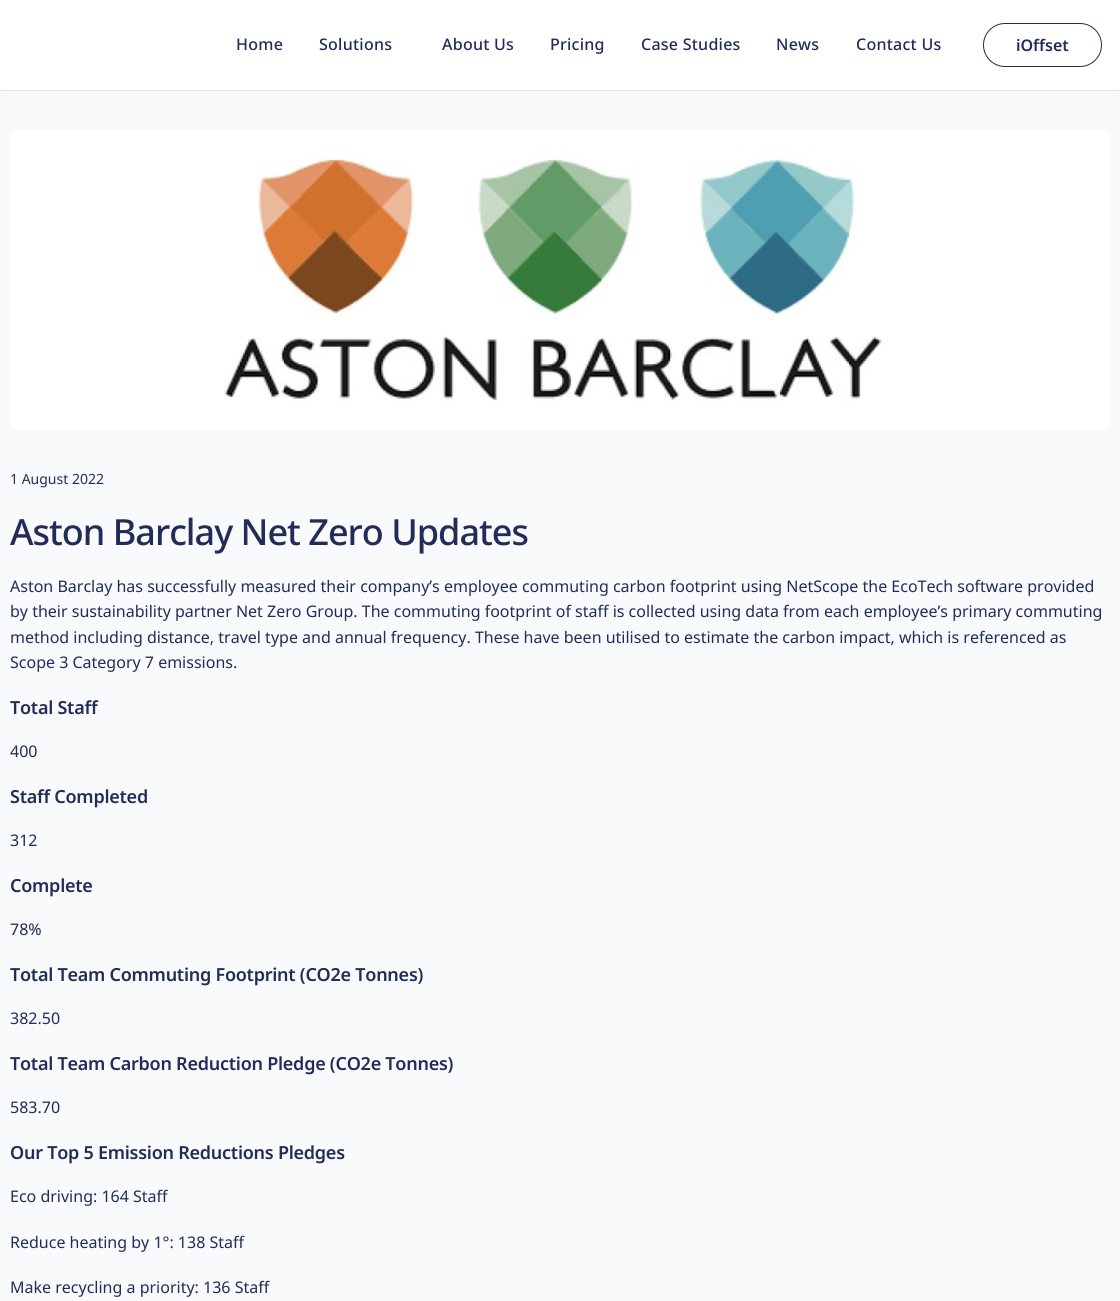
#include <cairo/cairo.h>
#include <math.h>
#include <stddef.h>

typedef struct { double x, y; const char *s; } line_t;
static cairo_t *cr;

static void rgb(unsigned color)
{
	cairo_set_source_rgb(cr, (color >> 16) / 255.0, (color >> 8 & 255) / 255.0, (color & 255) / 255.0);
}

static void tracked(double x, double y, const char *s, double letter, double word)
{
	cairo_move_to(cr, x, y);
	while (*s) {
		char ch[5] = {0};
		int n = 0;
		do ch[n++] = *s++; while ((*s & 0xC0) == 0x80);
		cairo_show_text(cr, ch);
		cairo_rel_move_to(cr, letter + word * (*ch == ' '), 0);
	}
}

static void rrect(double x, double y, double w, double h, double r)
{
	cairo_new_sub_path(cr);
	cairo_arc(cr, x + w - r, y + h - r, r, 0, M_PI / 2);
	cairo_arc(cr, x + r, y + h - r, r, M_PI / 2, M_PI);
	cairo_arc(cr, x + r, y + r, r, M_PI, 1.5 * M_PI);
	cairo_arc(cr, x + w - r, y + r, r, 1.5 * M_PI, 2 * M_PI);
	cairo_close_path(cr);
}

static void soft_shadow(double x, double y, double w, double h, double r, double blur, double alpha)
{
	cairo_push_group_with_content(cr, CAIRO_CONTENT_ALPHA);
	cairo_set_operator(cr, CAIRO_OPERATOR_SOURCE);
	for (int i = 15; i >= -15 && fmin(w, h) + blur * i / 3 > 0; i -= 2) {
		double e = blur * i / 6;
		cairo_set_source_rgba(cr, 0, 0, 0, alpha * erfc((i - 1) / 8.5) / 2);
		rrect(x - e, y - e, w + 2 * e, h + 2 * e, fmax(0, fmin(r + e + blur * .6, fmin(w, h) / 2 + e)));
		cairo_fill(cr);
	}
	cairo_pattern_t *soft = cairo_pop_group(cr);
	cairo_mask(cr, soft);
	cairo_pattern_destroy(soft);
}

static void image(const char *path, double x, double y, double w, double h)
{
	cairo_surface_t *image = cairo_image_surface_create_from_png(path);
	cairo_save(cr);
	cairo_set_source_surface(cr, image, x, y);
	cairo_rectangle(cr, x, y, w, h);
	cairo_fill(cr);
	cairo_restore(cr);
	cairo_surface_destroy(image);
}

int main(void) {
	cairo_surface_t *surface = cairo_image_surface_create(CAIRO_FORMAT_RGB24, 1120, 1301);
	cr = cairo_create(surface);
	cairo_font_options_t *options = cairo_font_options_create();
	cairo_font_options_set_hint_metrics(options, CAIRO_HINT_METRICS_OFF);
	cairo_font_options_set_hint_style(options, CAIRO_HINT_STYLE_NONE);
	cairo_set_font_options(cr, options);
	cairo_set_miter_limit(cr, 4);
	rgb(0xf8fafc);
	cairo_paint(cr);
	rgb(0x000000);
	soft_shadow(0, 0, 1120, 90, 0, 1, 0.22);
	rgb(0xffffff);
	cairo_rectangle(cr, 0, 0, 1120, 90);
	cairo_fill(cr);
	rrect(983.5, 23.5, 118, 43, 21.5);
	rgb(0x232b59);
	cairo_set_line_width(cr, 1);
	cairo_stroke(cr);
	image("img/1.png", 10, 130, 1100, 300);
	cairo_select_font_face(cr, "Noto Sans Medium", CAIRO_FONT_SLANT_NORMAL, CAIRO_FONT_WEIGHT_NORMAL);
	cairo_set_font_size(cr, 16);
	{
		static const line_t items[] = {
			{236, 50, "Home"},
			{319, 50, "Solutions"},
			{442, 50, "About Us"},
			{550, 50, "Pricing"},
			{641, 50, "Case Studies"},
			{776, 50, "News"},
			{856, 50, "Contact Us"},
		};
		for (size_t i = 0; i < sizeof items / sizeof *items; i++) {
			tracked(items[i].x, items[i].y, items[i].s, 0.25, 0);
		}
	}
	cairo_select_font_face(cr, "Noto Sans SemiBold", CAIRO_FONT_SLANT_NORMAL, CAIRO_FONT_WEIGHT_NORMAL);
	cairo_move_to(cr, 1016, 51);
	cairo_show_text(cr, "iOffset");
	cairo_select_font_face(cr, "Noto Sans", CAIRO_FONT_SLANT_NORMAL, CAIRO_FONT_WEIGHT_NORMAL);
	cairo_set_font_size(cr, 14);
	cairo_move_to(cr, 10, 484);
	cairo_show_text(cr, "1 August 2022");
	cairo_select_font_face(cr, "Noto Sans Medium", CAIRO_FONT_SLANT_NORMAL, CAIRO_FONT_WEIGHT_NORMAL);
	cairo_set_font_size(cr, 36);
	tracked(10, 545, "Aston Barclay Net Zero Updates", -1, 0);
	cairo_select_font_face(cr, "Noto Sans", CAIRO_FONT_SLANT_NORMAL, CAIRO_FONT_WEIGHT_NORMAL);
	cairo_set_font_size(cr, 16);
	{
		static const line_t items[] = {
			{10, 592, "Aston Barclay has successfully measured their company’s employee commuting carbon footprint using NetScope the EcoTech software provided"},
			{10, 617, "by their sustainability partner Net Zero Group. The commuting footprint of staff is collected using data from each employee’s primary commuting"},
			{10, 643, "method including distance, travel type and annual frequency. These have been utilised to estimate the carbon impact, which is referenced as"},
			{10, 668, "Scope 3 Category 7 emissions."},
		};
		for (size_t i = 0; i < sizeof items / sizeof *items; i++) {
			cairo_move_to(cr, items[i].x, items[i].y);
			cairo_show_text(cr, items[i].s);
		}
	}
	cairo_select_font_face(cr, "Noto Sans SemiBold", CAIRO_FONT_SLANT_NORMAL, CAIRO_FONT_WEIGHT_NORMAL);
	cairo_set_font_size(cr, 18);
	tracked(10, 714, "Total Staff", -0.25, 0);
	cairo_select_font_face(cr, "Noto Sans", CAIRO_FONT_SLANT_NORMAL, CAIRO_FONT_WEIGHT_NORMAL);
	cairo_set_font_size(cr, 16);
	cairo_move_to(cr, 10, 757);
	cairo_show_text(cr, "400");
	cairo_select_font_face(cr, "Noto Sans SemiBold", CAIRO_FONT_SLANT_NORMAL, CAIRO_FONT_WEIGHT_NORMAL);
	cairo_set_font_size(cr, 18);
	tracked(10, 803, "Staff Completed", -0.25, 0);
	cairo_select_font_face(cr, "Noto Sans", CAIRO_FONT_SLANT_NORMAL, CAIRO_FONT_WEIGHT_NORMAL);
	cairo_set_font_size(cr, 16);
	cairo_move_to(cr, 10, 846);
	cairo_show_text(cr, "312");
	cairo_select_font_face(cr, "Noto Sans SemiBold", CAIRO_FONT_SLANT_NORMAL, CAIRO_FONT_WEIGHT_NORMAL);
	cairo_set_font_size(cr, 18);
	tracked(10, 892, "Complete", -0.25, 0);
	cairo_select_font_face(cr, "Noto Sans", CAIRO_FONT_SLANT_NORMAL, CAIRO_FONT_WEIGHT_NORMAL);
	cairo_set_font_size(cr, 16);
	cairo_move_to(cr, 10, 935);
	cairo_show_text(cr, "78%");
	cairo_select_font_face(cr, "Noto Sans SemiBold", CAIRO_FONT_SLANT_NORMAL, CAIRO_FONT_WEIGHT_NORMAL);
	cairo_set_font_size(cr, 18);
	tracked(10, 981, "Total Team Commuting Footprint (CO2e Tonnes)", -0.25, 0);
	cairo_select_font_face(cr, "Noto Sans", CAIRO_FONT_SLANT_NORMAL, CAIRO_FONT_WEIGHT_NORMAL);
	cairo_set_font_size(cr, 16);
	cairo_move_to(cr, 10, 1024);
	cairo_show_text(cr, "382.50");
	cairo_select_font_face(cr, "Noto Sans SemiBold", CAIRO_FONT_SLANT_NORMAL, CAIRO_FONT_WEIGHT_NORMAL);
	cairo_set_font_size(cr, 18);
	tracked(10, 1070, "Total Team Carbon Reduction Pledge (CO2e Tonnes)", -0.25, 0);
	cairo_select_font_face(cr, "Noto Sans", CAIRO_FONT_SLANT_NORMAL, CAIRO_FONT_WEIGHT_NORMAL);
	cairo_set_font_size(cr, 16);
	cairo_move_to(cr, 10, 1113);
	cairo_show_text(cr, "583.70");
	cairo_select_font_face(cr, "Noto Sans SemiBold", CAIRO_FONT_SLANT_NORMAL, CAIRO_FONT_WEIGHT_NORMAL);
	cairo_set_font_size(cr, 18);
	tracked(10, 1159, "Our Top 5 Emission Reductions Pledges", -0.25, 0);
	cairo_select_font_face(cr, "Noto Sans", CAIRO_FONT_SLANT_NORMAL, CAIRO_FONT_WEIGHT_NORMAL);
	cairo_set_font_size(cr, 16);
	{
		static const line_t items[] = {
			{10, 1202, "Eco driving: 164 Staff"},
			{10, 1248, "Reduce heating by 1°: 138 Staff"},
			{10, 1293, "Make recycling a priority: 136 Staff"},
		};
		for (size_t i = 0; i < sizeof items / sizeof *items; i++) {
			cairo_move_to(cr, items[i].x, items[i].y);
			cairo_show_text(cr, items[i].s);
		}
	}
	cairo_surface_write_to_png(surface, "page.png");
	cairo_font_options_destroy(options);
	cairo_destroy(cr);
	cairo_surface_destroy(surface);
	return 0;
}
